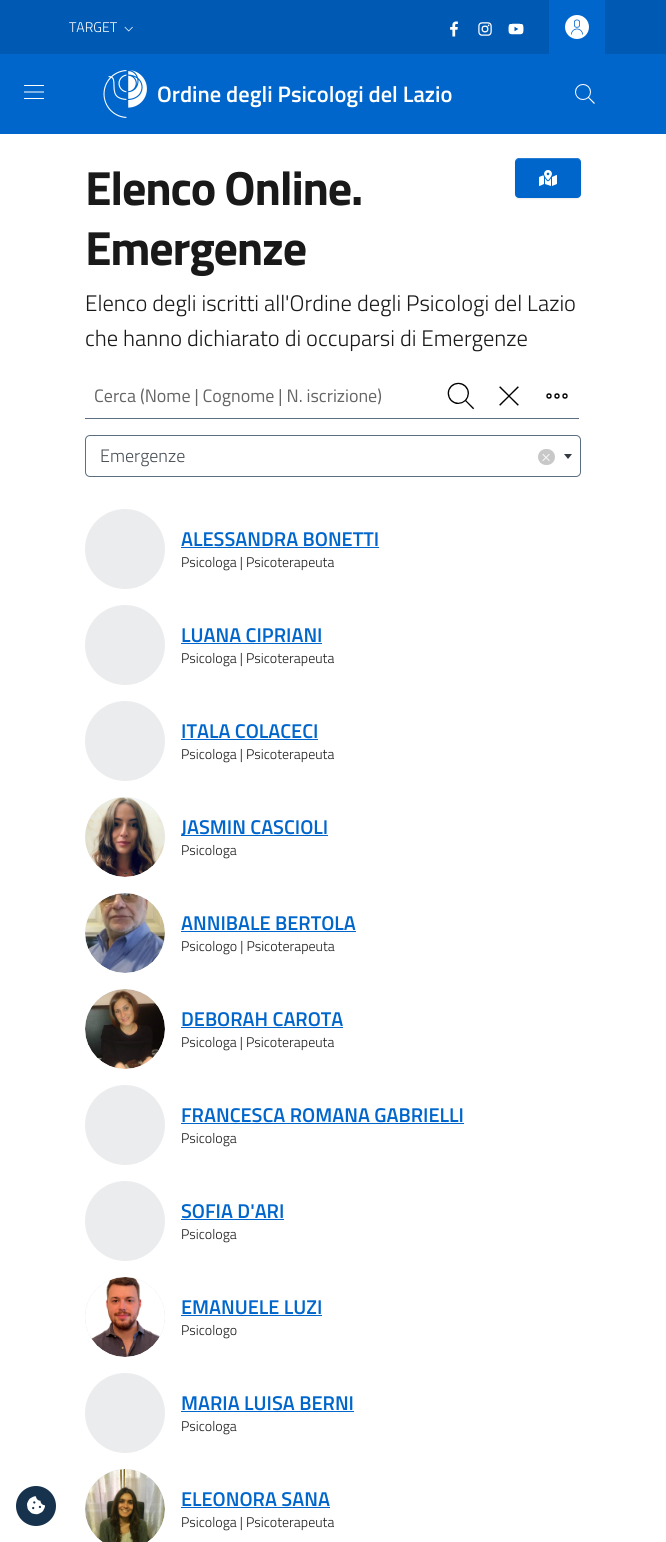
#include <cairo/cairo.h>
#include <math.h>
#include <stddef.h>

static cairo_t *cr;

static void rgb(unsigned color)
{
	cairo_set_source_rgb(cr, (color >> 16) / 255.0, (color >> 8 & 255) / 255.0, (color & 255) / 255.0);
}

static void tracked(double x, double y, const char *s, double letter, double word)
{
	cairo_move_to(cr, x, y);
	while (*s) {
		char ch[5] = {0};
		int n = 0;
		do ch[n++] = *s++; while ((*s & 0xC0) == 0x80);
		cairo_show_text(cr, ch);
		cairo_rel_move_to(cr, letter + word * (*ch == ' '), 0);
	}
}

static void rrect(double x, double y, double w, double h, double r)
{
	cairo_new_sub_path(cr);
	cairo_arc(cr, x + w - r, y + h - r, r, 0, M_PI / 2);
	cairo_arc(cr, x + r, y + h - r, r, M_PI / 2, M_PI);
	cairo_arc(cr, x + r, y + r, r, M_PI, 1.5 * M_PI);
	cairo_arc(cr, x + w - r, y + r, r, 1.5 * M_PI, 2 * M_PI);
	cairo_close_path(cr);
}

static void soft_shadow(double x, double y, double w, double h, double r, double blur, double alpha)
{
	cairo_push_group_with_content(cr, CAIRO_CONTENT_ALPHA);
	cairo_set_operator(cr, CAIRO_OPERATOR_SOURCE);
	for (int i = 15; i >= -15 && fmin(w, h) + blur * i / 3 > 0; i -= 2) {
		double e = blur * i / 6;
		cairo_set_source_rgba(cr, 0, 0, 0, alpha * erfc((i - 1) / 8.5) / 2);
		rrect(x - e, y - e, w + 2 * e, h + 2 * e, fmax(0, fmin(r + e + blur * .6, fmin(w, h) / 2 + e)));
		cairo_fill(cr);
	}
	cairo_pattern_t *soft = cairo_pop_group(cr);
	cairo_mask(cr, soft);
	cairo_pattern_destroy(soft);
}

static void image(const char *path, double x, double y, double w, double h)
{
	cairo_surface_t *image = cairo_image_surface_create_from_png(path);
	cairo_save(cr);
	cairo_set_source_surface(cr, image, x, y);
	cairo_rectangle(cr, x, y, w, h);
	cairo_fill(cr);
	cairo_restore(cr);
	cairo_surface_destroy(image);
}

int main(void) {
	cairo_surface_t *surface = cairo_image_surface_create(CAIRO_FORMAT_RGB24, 666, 1542);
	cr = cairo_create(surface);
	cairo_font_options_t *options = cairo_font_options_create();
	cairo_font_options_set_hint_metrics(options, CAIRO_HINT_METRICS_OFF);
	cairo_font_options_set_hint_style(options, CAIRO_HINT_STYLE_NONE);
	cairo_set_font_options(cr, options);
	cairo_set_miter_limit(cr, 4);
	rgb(0xffffff);
	cairo_paint(cr);
	rgb(0x0059b3);
	cairo_rectangle(cr, 0, 0, 666, 54);
	cairo_fill(cr);
	image("img/1.png", 124, 26, 9, 6);
	image("img/2.png", 450, 21, 8, 16);
	image("img/3.png", 478, 22, 14, 14);
	image("img/4.png", 508, 23, 16, 12);
	rgb(0x0066cc);
	cairo_rectangle(cr, 549, 0, 56, 54);
	cairo_fill(cr);
	rgb(0xffffff);
	cairo_arc(cr, 577, 27, 12, 0, 2 * M_PI);
	cairo_fill(cr);
	image("img/5.png", 571, 19, 12, 16);
	rgb(0x0066cc);
	cairo_rectangle(cr, 0, 54, 666, 80);
	cairo_fill(cr);
	image("img/6.png", 24, 85, 20, 14);
	image("img/7.png", 103, 70, 44, 48);
	image("img/8.png", 575, 84, 20, 20);
	rgb(0x17324d);
	cairo_arc(cr, 36, 1506, 20, 0, 2 * M_PI);
	cairo_fill(cr);
	image("img/9.png", 27, 1496, 18, 19);
	rgb(0x000000);
	soft_shadow(515, 159, 66, 40, 4, 0.5, 0.07);
	rgb(0x0066cc);
	rrect(515, 158, 66, 40, 4);
	cairo_fill(cr);
	cairo_set_source_rgba(cr, 1, 1, 1, 0.15);
	cairo_new_path(cr);
	cairo_move_to(cr, 519, 159);
	cairo_line_to(cr, 577, 159);
	cairo_curve_to(cr, 579, 159, 581, 161, 581, 163);
	cairo_curve_to(cr, 581, 156, 572, 158, 567, 158);
	cairo_line_to(cr, 529, 158);
	cairo_curve_to(cr, 524, 158, 515, 156, 515, 163);
	cairo_curve_to(cr, 515, 161, 517, 159, 519, 159);
	cairo_close_path(cr);
	cairo_fill(cr);
	image("img/10.png", 539, 170, 18, 16);
	rgb(0x5c6f82);
	cairo_rectangle(cr, 85, 418, 494, 1);
	cairo_fill(cr);
	image("img/11.png", 447, 382, 28, 28);
	image("img/12.png", 499, 386, 20, 20);
	image("img/13.png", 546, 393, 22, 6);
	rrect(85.5, 435.5, 495, 41, 4.5);
	cairo_set_line_width(cr, 1);
	cairo_stroke(cr);
	rgb(0xc8c8c8);
	rrect(538, 449, 17, 16, 8);
	cairo_fill(cr);
	rgb(0x343a40);
	cairo_new_path(cr);
	cairo_move_to(cr, 564, 454);
	cairo_line_to(cr, 572, 454);
	cairo_line_to(cr, 568, 459);
	cairo_close_path(cr);
	cairo_fill(cr);
	rgb(0xebeced);
	cairo_arc(cr, 125, 549, 40, 0, 2 * M_PI);
	cairo_fill(cr);
	rgb(0x0066cc);
	cairo_rectangle(cr, 181, 547, 198, 1);
	cairo_fill(cr);
	rgb(0xebeced);
	cairo_arc(cr, 125, 645, 40, 0, 2 * M_PI);
	cairo_fill(cr);
	rgb(0x0066cc);
	cairo_rectangle(cr, 181, 643, 141, 1);
	cairo_fill(cr);
	rgb(0xebeced);
	cairo_arc(cr, 125, 741, 40, 0, 2 * M_PI);
	cairo_fill(cr);
	rgb(0x0066cc);
	cairo_rectangle(cr, 181, 739, 137, 1);
	cairo_fill(cr);
	rgb(0xebeced);
	cairo_arc(cr, 125, 837, 40, 0, 2 * M_PI);
	cairo_fill(cr);
	image("img/14.png", 85, 797, 80, 80);
	rgb(0x0066cc);
	cairo_rectangle(cr, 181, 835, 147, 1);
	cairo_fill(cr);
	rgb(0xebeced);
	cairo_arc(cr, 125, 933, 40, 0, 2 * M_PI);
	cairo_fill(cr);
	image("img/15.png", 85, 893, 80, 80);
	rgb(0x0066cc);
	cairo_rectangle(cr, 181, 931, 175, 1);
	cairo_fill(cr);
	rgb(0xebeced);
	cairo_arc(cr, 125, 1029, 40, 0, 2 * M_PI);
	cairo_fill(cr);
	image("img/16.png", 85, 989, 80, 80);
	rgb(0x0066cc);
	cairo_rectangle(cr, 181, 1027, 162, 1);
	cairo_fill(cr);
	rgb(0xebeced);
	cairo_arc(cr, 125, 1125, 40, 0, 2 * M_PI);
	cairo_fill(cr);
	rgb(0x0066cc);
	cairo_rectangle(cr, 181, 1123, 283, 1);
	cairo_fill(cr);
	rgb(0xebeced);
	cairo_arc(cr, 125, 1221, 40, 0, 2 * M_PI);
	cairo_fill(cr);
	rgb(0x0066cc);
	cairo_rectangle(cr, 181, 1219, 103, 1);
	cairo_fill(cr);
	rgb(0xebeced);
	cairo_arc(cr, 125, 1317, 40, 0, 2 * M_PI);
	cairo_fill(cr);
	image("img/17.png", 85, 1277, 80, 80);
	rgb(0x0066cc);
	cairo_rectangle(cr, 181, 1315, 141, 1);
	cairo_fill(cr);
	rgb(0xebeced);
	cairo_arc(cr, 125, 1413, 40, 0, 2 * M_PI);
	cairo_fill(cr);
	rgb(0x0066cc);
	cairo_rectangle(cr, 181, 1411, 173, 1);
	cairo_fill(cr);
	rgb(0xebeced);
	cairo_arc(cr, 125, 1509, 40, 0, 2 * M_PI);
	cairo_fill(cr);
	image("img/18.png", 85, 1469, 80, 73);
	rgb(0x0066cc);
	cairo_rectangle(cr, 181, 1507, 149, 1);
	cairo_fill(cr);
	cairo_select_font_face(cr, "Titillium Web Light", CAIRO_FONT_SLANT_NORMAL, CAIRO_FONT_WEIGHT_NORMAL);
	cairo_set_font_size(cr, 14);
	rgb(0xffffff);
	cairo_move_to(cr, 69, 32);
	cairo_show_text(cr, "TARGET");
	cairo_select_font_face(cr, "Titillium Web SemiBold", CAIRO_FONT_SLANT_NORMAL, CAIRO_FONT_WEIGHT_NORMAL);
	cairo_set_font_size(cr, 22.5);
	cairo_move_to(cr, 157, 102);
	cairo_show_text(cr, "Ordine degli Psicologi del Lazio");
	cairo_select_font_face(cr, "Titillium Web", CAIRO_FONT_SLANT_NORMAL, CAIRO_FONT_WEIGHT_BOLD);
	cairo_set_font_size(cr, 48);
	rgb(0x19191a);
	tracked(85, 205, "Elenco Online.", -1.25, 0);
	tracked(85, 265, "Emergenze", -1.25, 0);
	cairo_select_font_face(cr, "Titillium Web Light", CAIRO_FONT_SLANT_NORMAL, CAIRO_FONT_WEIGHT_NORMAL);
	cairo_set_font_size(cr, 22.5);
	cairo_move_to(cr, 85, 311);
	cairo_show_text(cr, "Elenco degli iscritti all'Ordine degli Psicologi del Lazio");
	cairo_move_to(cr, 85, 346);
	cairo_show_text(cr, "che hanno dichiarato di occuparsi di Emergenze");
	cairo_select_font_face(cr, "Titillium Web", CAIRO_FONT_SLANT_NORMAL, CAIRO_FONT_WEIGHT_NORMAL);
	cairo_set_font_size(cr, 18);
	rgb(0x656566);
	cairo_move_to(cr, 94, 402);
	cairo_show_text(cr, "Cerca (Nome | Cognome | N. iscrizione)");
	cairo_select_font_face(cr, "Titillium Web Light", CAIRO_FONT_SLANT_NORMAL, CAIRO_FONT_WEIGHT_NORMAL);
	rgb(0x495057);
	cairo_move_to(cr, 100, 462);
	cairo_show_text(cr, "Emergenze");
	rgb(0xf8f9fa);
	cairo_move_to(cr, 541, 462);
	cairo_show_text(cr, "×");
	cairo_select_font_face(cr, "Titillium Web SemiBold", CAIRO_FONT_SLANT_NORMAL, CAIRO_FONT_WEIGHT_NORMAL);
	cairo_set_font_size(cr, 20);
	rgb(0x0066cc);
	cairo_move_to(cr, 181, 546);
	cairo_show_text(cr, "ALESSANDRA BONETTI");
	cairo_select_font_face(cr, "Titillium Web Light", CAIRO_FONT_SLANT_NORMAL, CAIRO_FONT_WEIGHT_NORMAL);
	cairo_set_font_size(cr, 14);
	rgb(0x19191a);
	cairo_move_to(cr, 181, 567);
	cairo_show_text(cr, "Psicologa | Psicoterapeuta");
	cairo_select_font_face(cr, "Titillium Web SemiBold", CAIRO_FONT_SLANT_NORMAL, CAIRO_FONT_WEIGHT_NORMAL);
	cairo_set_font_size(cr, 20);
	rgb(0x0066cc);
	cairo_move_to(cr, 181, 642);
	cairo_show_text(cr, "LUANA CIPRIANI");
	cairo_select_font_face(cr, "Titillium Web Light", CAIRO_FONT_SLANT_NORMAL, CAIRO_FONT_WEIGHT_NORMAL);
	cairo_set_font_size(cr, 14);
	rgb(0x19191a);
	cairo_move_to(cr, 181, 663);
	cairo_show_text(cr, "Psicologa | Psicoterapeuta");
	cairo_select_font_face(cr, "Titillium Web SemiBold", CAIRO_FONT_SLANT_NORMAL, CAIRO_FONT_WEIGHT_NORMAL);
	cairo_set_font_size(cr, 20);
	rgb(0x0066cc);
	cairo_move_to(cr, 181, 738);
	cairo_show_text(cr, "ITALA COLACECI");
	cairo_select_font_face(cr, "Titillium Web Light", CAIRO_FONT_SLANT_NORMAL, CAIRO_FONT_WEIGHT_NORMAL);
	cairo_set_font_size(cr, 14);
	rgb(0x19191a);
	cairo_move_to(cr, 181, 759);
	cairo_show_text(cr, "Psicologa | Psicoterapeuta");
	cairo_select_font_face(cr, "Titillium Web SemiBold", CAIRO_FONT_SLANT_NORMAL, CAIRO_FONT_WEIGHT_NORMAL);
	cairo_set_font_size(cr, 20);
	rgb(0x0066cc);
	cairo_move_to(cr, 181, 834);
	cairo_show_text(cr, "JASMIN CASCIOLI");
	cairo_select_font_face(cr, "Titillium Web Light", CAIRO_FONT_SLANT_NORMAL, CAIRO_FONT_WEIGHT_NORMAL);
	cairo_set_font_size(cr, 14);
	rgb(0x19191a);
	cairo_move_to(cr, 181, 855);
	cairo_show_text(cr, "Psicologa");
	cairo_select_font_face(cr, "Titillium Web SemiBold", CAIRO_FONT_SLANT_NORMAL, CAIRO_FONT_WEIGHT_NORMAL);
	cairo_set_font_size(cr, 20);
	rgb(0x0066cc);
	cairo_move_to(cr, 181, 930);
	cairo_show_text(cr, "ANNIBALE BERTOLA");
	cairo_select_font_face(cr, "Titillium Web Light", CAIRO_FONT_SLANT_NORMAL, CAIRO_FONT_WEIGHT_NORMAL);
	cairo_set_font_size(cr, 14);
	rgb(0x19191a);
	cairo_move_to(cr, 181, 951);
	cairo_show_text(cr, "Psicologo | Psicoterapeuta");
	cairo_select_font_face(cr, "Titillium Web SemiBold", CAIRO_FONT_SLANT_NORMAL, CAIRO_FONT_WEIGHT_NORMAL);
	cairo_set_font_size(cr, 20);
	rgb(0x0066cc);
	cairo_move_to(cr, 181, 1026);
	cairo_show_text(cr, "DEBORAH CAROTA");
	cairo_select_font_face(cr, "Titillium Web Light", CAIRO_FONT_SLANT_NORMAL, CAIRO_FONT_WEIGHT_NORMAL);
	cairo_set_font_size(cr, 14);
	rgb(0x19191a);
	cairo_move_to(cr, 181, 1047);
	cairo_show_text(cr, "Psicologa | Psicoterapeuta");
	cairo_select_font_face(cr, "Titillium Web SemiBold", CAIRO_FONT_SLANT_NORMAL, CAIRO_FONT_WEIGHT_NORMAL);
	cairo_set_font_size(cr, 20);
	rgb(0x0066cc);
	cairo_move_to(cr, 181, 1122);
	cairo_show_text(cr, "FRANCESCA ROMANA GABRIELLI");
	cairo_select_font_face(cr, "Titillium Web Light", CAIRO_FONT_SLANT_NORMAL, CAIRO_FONT_WEIGHT_NORMAL);
	cairo_set_font_size(cr, 14);
	rgb(0x19191a);
	cairo_move_to(cr, 181, 1143);
	cairo_show_text(cr, "Psicologa");
	cairo_select_font_face(cr, "Titillium Web SemiBold", CAIRO_FONT_SLANT_NORMAL, CAIRO_FONT_WEIGHT_NORMAL);
	cairo_set_font_size(cr, 20);
	rgb(0x0066cc);
	cairo_move_to(cr, 181, 1218);
	cairo_show_text(cr, "SOFIA D'ARI");
	cairo_select_font_face(cr, "Titillium Web Light", CAIRO_FONT_SLANT_NORMAL, CAIRO_FONT_WEIGHT_NORMAL);
	cairo_set_font_size(cr, 14);
	rgb(0x19191a);
	cairo_move_to(cr, 181, 1239);
	cairo_show_text(cr, "Psicologa");
	cairo_select_font_face(cr, "Titillium Web SemiBold", CAIRO_FONT_SLANT_NORMAL, CAIRO_FONT_WEIGHT_NORMAL);
	cairo_set_font_size(cr, 20);
	rgb(0x0066cc);
	cairo_move_to(cr, 181, 1314);
	cairo_show_text(cr, "EMANUELE LUZI");
	cairo_select_font_face(cr, "Titillium Web Light", CAIRO_FONT_SLANT_NORMAL, CAIRO_FONT_WEIGHT_NORMAL);
	cairo_set_font_size(cr, 14);
	rgb(0x19191a);
	cairo_move_to(cr, 181, 1335);
	cairo_show_text(cr, "Psicologo");
	cairo_select_font_face(cr, "Titillium Web SemiBold", CAIRO_FONT_SLANT_NORMAL, CAIRO_FONT_WEIGHT_NORMAL);
	cairo_set_font_size(cr, 20);
	rgb(0x0066cc);
	cairo_move_to(cr, 181, 1410);
	cairo_show_text(cr, "MARIA LUISA BERNI");
	cairo_select_font_face(cr, "Titillium Web Light", CAIRO_FONT_SLANT_NORMAL, CAIRO_FONT_WEIGHT_NORMAL);
	cairo_set_font_size(cr, 14);
	rgb(0x19191a);
	cairo_move_to(cr, 181, 1431);
	cairo_show_text(cr, "Psicologa");
	cairo_select_font_face(cr, "Titillium Web SemiBold", CAIRO_FONT_SLANT_NORMAL, CAIRO_FONT_WEIGHT_NORMAL);
	cairo_set_font_size(cr, 20);
	rgb(0x0066cc);
	cairo_move_to(cr, 181, 1506);
	cairo_show_text(cr, "ELEONORA SANA");
	cairo_select_font_face(cr, "Titillium Web Light", CAIRO_FONT_SLANT_NORMAL, CAIRO_FONT_WEIGHT_NORMAL);
	cairo_set_font_size(cr, 14);
	rgb(0x19191a);
	cairo_move_to(cr, 181, 1527);
	cairo_show_text(cr, "Psicologa | Psicoterapeuta");
	cairo_surface_write_to_png(surface, "page.png");
	cairo_font_options_destroy(options);
	cairo_destroy(cr);
	cairo_surface_destroy(surface);
	return 0;
}
